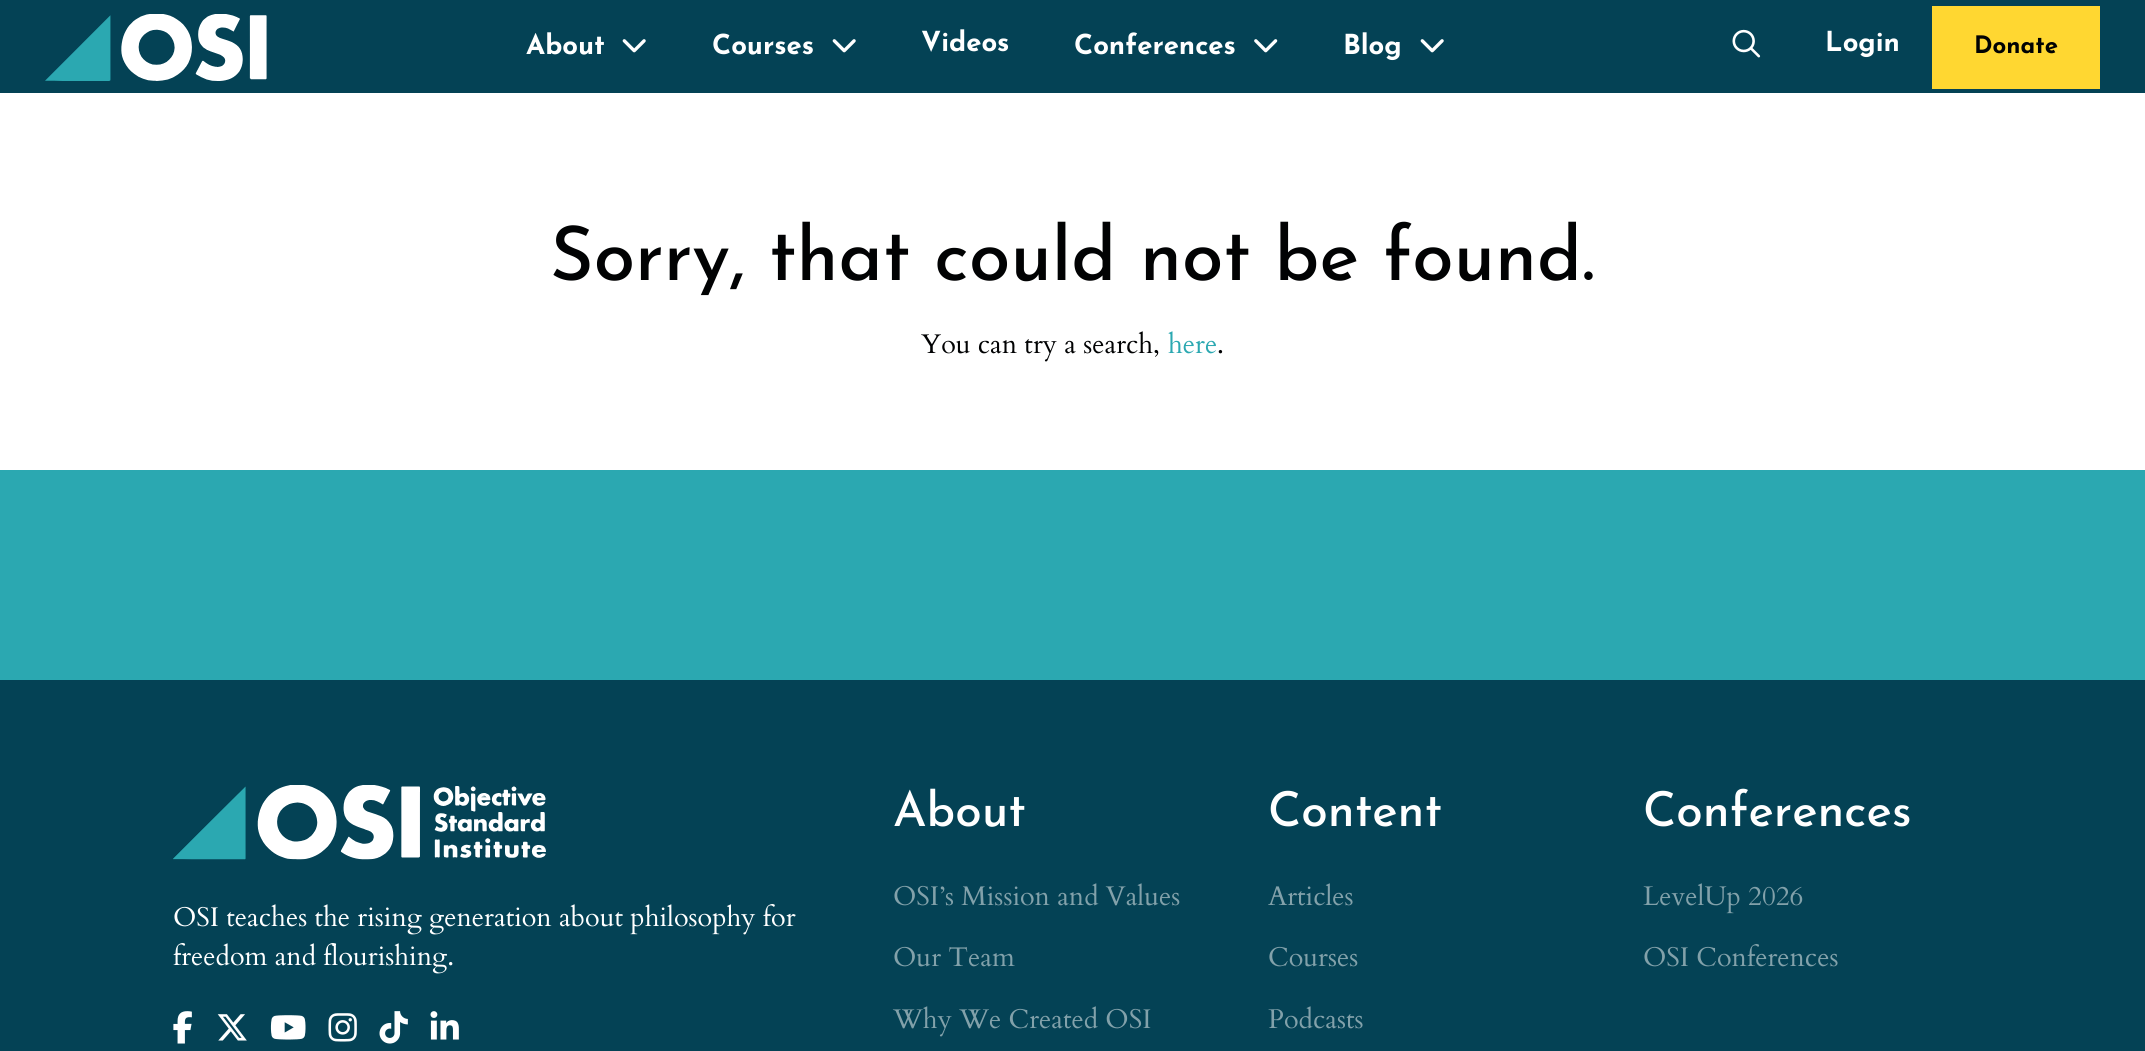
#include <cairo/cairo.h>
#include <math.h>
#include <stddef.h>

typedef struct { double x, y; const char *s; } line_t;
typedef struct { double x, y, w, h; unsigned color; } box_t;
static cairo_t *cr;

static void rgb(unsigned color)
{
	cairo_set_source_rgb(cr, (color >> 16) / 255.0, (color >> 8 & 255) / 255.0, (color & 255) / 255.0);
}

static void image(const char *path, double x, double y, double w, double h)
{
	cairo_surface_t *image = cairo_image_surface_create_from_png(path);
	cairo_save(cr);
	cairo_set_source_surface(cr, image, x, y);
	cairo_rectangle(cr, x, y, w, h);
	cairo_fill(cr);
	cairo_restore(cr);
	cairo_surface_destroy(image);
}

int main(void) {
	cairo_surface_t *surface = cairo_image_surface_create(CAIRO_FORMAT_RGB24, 2145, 1051);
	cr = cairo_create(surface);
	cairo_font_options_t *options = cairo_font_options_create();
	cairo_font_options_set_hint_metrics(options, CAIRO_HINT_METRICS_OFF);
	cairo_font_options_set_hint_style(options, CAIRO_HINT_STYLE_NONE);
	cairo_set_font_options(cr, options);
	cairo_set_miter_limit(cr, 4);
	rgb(0xffffff);
	cairo_paint(cr);
	rgb(0x044255);
	cairo_rectangle(cr, 0, 0, 2145, 93);
	cairo_fill(cr);
	image("img/1.png", 45, 14, 222, 67);
	image("img/2.png", 622, 39, 24, 14);
	image("img/2.png", 832, 39, 24, 14);
	image("img/3.png", 1254, 39, 24, 14);
	image("img/2.png", 1420, 39, 24, 14);
	image("img/4.png", 1732, 29, 29, 29);
	{
		static const box_t items[] = {
			{1932, 6, 168, 83, 0xffd731},
			{0, 470, 2145, 210, 0x2ba8b1},
			{0, 680, 2145, 371, 0x044255},
		};
		for (size_t i = 0; i < sizeof items / sizeof *items; i++) {
			rgb(items[i].color);
			cairo_rectangle(cr, items[i].x, items[i].y, items[i].w, items[i].h);
			cairo_fill(cr);
		}
	}
	image("img/5.png", 173, 785, 373, 75);
	image("img/6.png", 173, 1011, 19, 33);
	image("img/7.png", 217, 1014, 30, 27);
	image("img/8.png", 270, 1015, 36, 25);
	image("img/9.png", 328, 1013, 29, 29);
	image("img/10.png", 379, 1011, 29, 33);
	image("img/11.png", 430, 1011, 29, 29);
	cairo_select_font_face(cr, "Josefin Sans", CAIRO_FONT_SLANT_NORMAL, CAIRO_FONT_WEIGHT_BOLD);
	cairo_set_font_size(cr, 27.5);
	rgb(0xffffff);
	{
		static const line_t items[] = {
			{526, 54, "About"},
			{712, 54, "Courses"},
			{921, 51, "Videos"},
			{1074, 54, "Conferences"},
			{1343, 54, "Blog"},
			{1825, 51, "Login"},
		};
		for (size_t i = 0; i < sizeof items / sizeof *items; i++) {
			cairo_move_to(cr, items[i].x, items[i].y);
			cairo_show_text(cr, items[i].s);
		}
	}
	cairo_set_font_size(cr, 24);
	rgb(0x010203);
	cairo_move_to(cr, 1974, 53);
	cairo_show_text(cr, "Donate");
	cairo_select_font_face(cr, "Josefin Sans Medium", CAIRO_FONT_SLANT_NORMAL, CAIRO_FONT_WEIGHT_NORMAL);
	cairo_set_font_size(cr, 75);
	cairo_move_to(cr, 550, 280);
	cairo_show_text(cr, "Sorry, that could not be found.");
	cairo_select_font_face(cr, "Cardo", CAIRO_FONT_SLANT_NORMAL, CAIRO_FONT_WEIGHT_NORMAL);
	cairo_set_font_size(cr, 27);
	cairo_move_to(cr, 921, 353);
	cairo_show_text(cr, "You can try a search,");
	rgb(0x2ba8b1);
	cairo_move_to(cr, 1168, 353);
	cairo_show_text(cr, "here");
	rgb(0x010203);
	cairo_move_to(cr, 1217, 353);
	cairo_show_text(cr, ".");
	rgb(0xffffff);
	cairo_move_to(cr, 173, 926);
	cairo_show_text(cr, "OSI teaches the rising generation about philosophy for");
	cairo_move_to(cr, 173, 965);
	cairo_show_text(cr, "freedom and flourishing.");
	cairo_select_font_face(cr, "Josefin Sans Medium", CAIRO_FONT_SLANT_NORMAL, CAIRO_FONT_WEIGHT_NORMAL);
	cairo_set_font_size(cr, 48);
	cairo_move_to(cr, 893, 826);
	cairo_show_text(cr, "About");
	cairo_select_font_face(cr, "Cardo", CAIRO_FONT_SLANT_NORMAL, CAIRO_FONT_WEIGHT_NORMAL);
	cairo_set_font_size(cr, 27);
	rgb(0x82a1aa);
	{
		static const line_t items[] = {
			{893, 905, "OSI’s Mission and Values"},
			{893, 966, "Our Team"},
			{893, 1028, "Why We Created OSI"},
		};
		for (size_t i = 0; i < sizeof items / sizeof *items; i++) {
			cairo_move_to(cr, items[i].x, items[i].y);
			cairo_show_text(cr, items[i].s);
		}
	}
	cairo_select_font_face(cr, "Josefin Sans Medium", CAIRO_FONT_SLANT_NORMAL, CAIRO_FONT_WEIGHT_NORMAL);
	cairo_set_font_size(cr, 48);
	rgb(0xffffff);
	cairo_move_to(cr, 1268, 826);
	cairo_show_text(cr, "Content");
	cairo_select_font_face(cr, "Cardo", CAIRO_FONT_SLANT_NORMAL, CAIRO_FONT_WEIGHT_NORMAL);
	cairo_set_font_size(cr, 27);
	rgb(0x82a1aa);
	{
		static const line_t items[] = {
			{1268, 905, "Articles"},
			{1268, 966, "Courses"},
			{1268, 1028, "Podcasts"},
		};
		for (size_t i = 0; i < sizeof items / sizeof *items; i++) {
			cairo_move_to(cr, items[i].x, items[i].y);
			cairo_show_text(cr, items[i].s);
		}
	}
	cairo_select_font_face(cr, "Josefin Sans Medium", CAIRO_FONT_SLANT_NORMAL, CAIRO_FONT_WEIGHT_NORMAL);
	cairo_set_font_size(cr, 48);
	rgb(0xffffff);
	cairo_move_to(cr, 1643, 826);
	cairo_show_text(cr, "Conferences");
	cairo_select_font_face(cr, "Cardo", CAIRO_FONT_SLANT_NORMAL, CAIRO_FONT_WEIGHT_NORMAL);
	cairo_set_font_size(cr, 27);
	rgb(0x82a1aa);
	cairo_move_to(cr, 1643, 905);
	cairo_show_text(cr, "LevelUp 2026");
	cairo_move_to(cr, 1643, 966);
	cairo_show_text(cr, "OSI Conferences");
	cairo_surface_write_to_png(surface, "page.png");
	cairo_font_options_destroy(options);
	cairo_destroy(cr);
	cairo_surface_destroy(surface);
	return 0;
}
